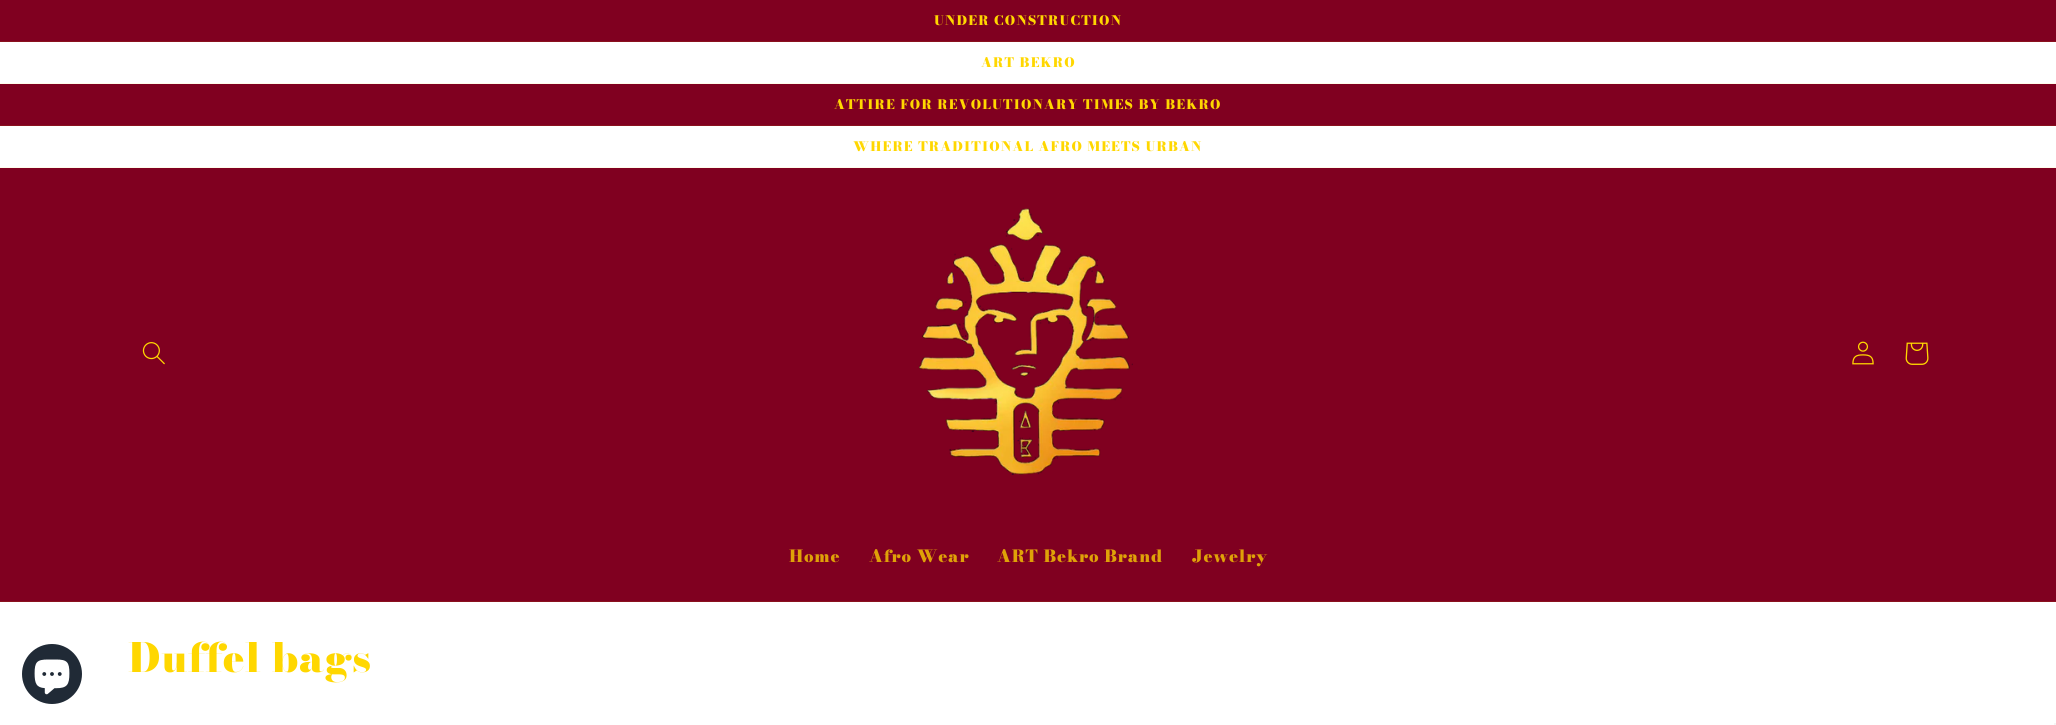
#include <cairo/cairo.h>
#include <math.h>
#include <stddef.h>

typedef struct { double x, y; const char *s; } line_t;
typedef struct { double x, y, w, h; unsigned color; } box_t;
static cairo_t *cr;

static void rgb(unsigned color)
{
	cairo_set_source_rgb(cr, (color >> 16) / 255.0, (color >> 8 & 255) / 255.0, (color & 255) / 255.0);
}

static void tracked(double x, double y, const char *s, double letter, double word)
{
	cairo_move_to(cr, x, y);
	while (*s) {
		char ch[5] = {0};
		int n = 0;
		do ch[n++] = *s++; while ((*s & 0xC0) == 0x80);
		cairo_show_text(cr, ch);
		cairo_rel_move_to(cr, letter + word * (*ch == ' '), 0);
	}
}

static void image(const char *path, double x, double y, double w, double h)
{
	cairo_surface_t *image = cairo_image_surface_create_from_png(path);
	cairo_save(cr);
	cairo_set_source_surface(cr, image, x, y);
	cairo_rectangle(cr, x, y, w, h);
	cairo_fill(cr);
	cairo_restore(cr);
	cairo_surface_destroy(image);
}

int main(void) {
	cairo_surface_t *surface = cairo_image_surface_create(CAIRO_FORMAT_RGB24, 2056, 725);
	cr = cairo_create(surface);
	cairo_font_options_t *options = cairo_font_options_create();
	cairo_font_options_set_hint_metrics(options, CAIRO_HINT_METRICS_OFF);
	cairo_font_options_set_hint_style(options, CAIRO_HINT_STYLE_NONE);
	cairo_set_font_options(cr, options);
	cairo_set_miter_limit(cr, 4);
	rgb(0xffffff);
	cairo_paint(cr);
	{
		static const box_t items[] = {
			{0, 0, 2056, 41, 0x800020},
			{0, 41, 2056, 1, 0x8a111d},
			{0, 83, 2056, 1, 0xfffceb},
			{0, 84, 2056, 41, 0x800020},
			{0, 125, 2056, 1, 0x8a111d},
			{0, 167, 2056, 1, 0xfffceb},
			{0, 168, 2056, 433, 0x800020},
			{0, 601, 2056, 1, 0x8a111d},
		};
		for (size_t i = 0; i < sizeof items / sizeof *items; i++) {
			rgb(items[i].color);
			cairo_rectangle(cr, items[i].x, items[i].y, items[i].w, items[i].h);
			cairo_fill(cr);
		}
	}
	image("img/1.png", 142, 342, 23, 23);
	image("img/2.png", 919, 208, 214, 267);
	image("img/3.png", 1852, 341, 22, 24);
	image("img/4.png", 1905, 342, 24, 23);
	rgb(0x202a36);
	cairo_arc(cr, 52, 674, 30, 0, 2 * M_PI);
	cairo_fill(cr);
	image("img/5.png", 34, 659, 36, 36);
	rgb(0xf5f5f5);
	cairo_rectangle(cr, 2054, 723, 2, 2);
	cairo_fill(cr);
	cairo_select_font_face(cr, "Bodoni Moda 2 Black", CAIRO_FONT_SLANT_NORMAL, CAIRO_FONT_WEIGHT_NORMAL);
	cairo_set_font_size(cr, 13);
	rgb(0xffd700);
	{
		static const line_t items[] = {
			{934, 25, "UNDER CONSTRUCTION"},
			{981, 67, "ART BEKRO"},
			{834, 109, "ATTIRE FOR REVOLUTIONARY TIMES BY BEKRO"},
			{853, 151, "WHERE TRADITIONAL AFRO MEETS URBAN"},
		};
		for (size_t i = 0; i < sizeof items / sizeof *items; i++) {
			tracked(items[i].x, items[i].y, items[i].s, 1.2, 0);
		}
	}
	cairo_set_font_size(cr, 16.75);
	rgb(0xdfa108);
	{
		static const line_t items[] = {
			{789, 562, "Home"},
			{869, 562, "Afro Wear"},
			{997, 562, "ART Bekro Brand"},
			{1192, 562, "Jewelry"},
		};
		for (size_t i = 0; i < sizeof items / sizeof *items; i++) {
			tracked(items[i].x, items[i].y, items[i].s, 0.75, 0);
		}
	}
	cairo_select_font_face(cr, "Bodoni Moda Black", CAIRO_FONT_SLANT_NORMAL, CAIRO_FONT_WEIGHT_NORMAL);
	cairo_set_font_size(cr, 40);
	rgb(0xffd700);
	tracked(128, 672, "Duffel bags", 0.6, 0);
	cairo_surface_write_to_png(surface, "page.png");
	cairo_font_options_destroy(options);
	cairo_destroy(cr);
	cairo_surface_destroy(surface);
	return 0;
}
